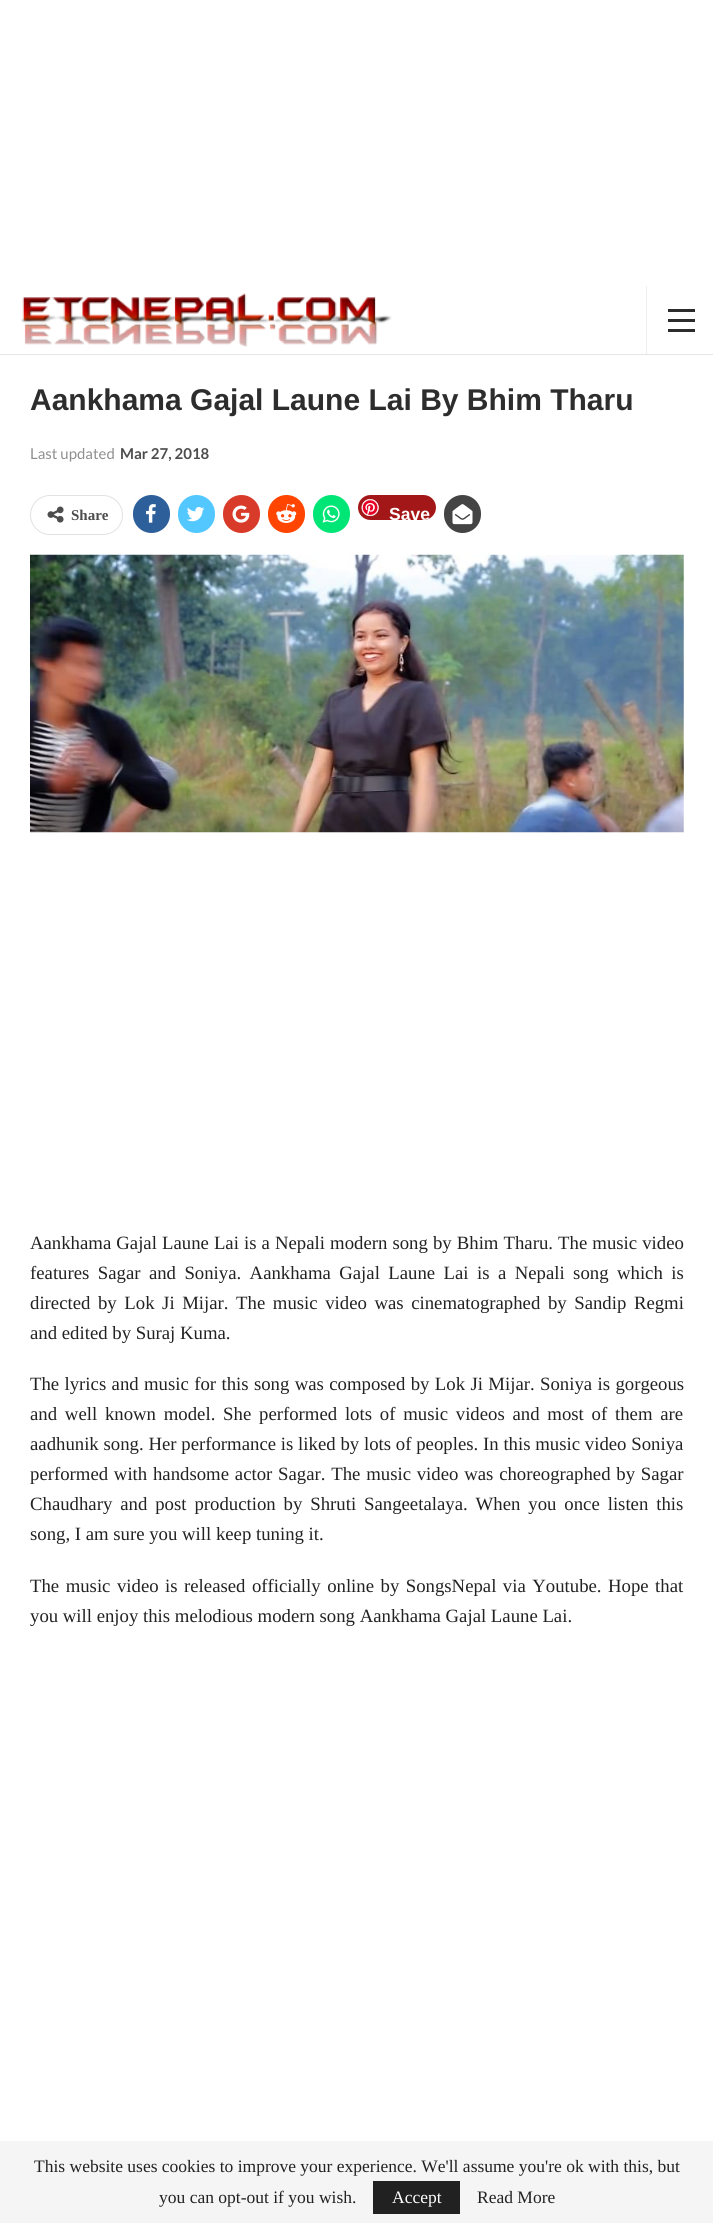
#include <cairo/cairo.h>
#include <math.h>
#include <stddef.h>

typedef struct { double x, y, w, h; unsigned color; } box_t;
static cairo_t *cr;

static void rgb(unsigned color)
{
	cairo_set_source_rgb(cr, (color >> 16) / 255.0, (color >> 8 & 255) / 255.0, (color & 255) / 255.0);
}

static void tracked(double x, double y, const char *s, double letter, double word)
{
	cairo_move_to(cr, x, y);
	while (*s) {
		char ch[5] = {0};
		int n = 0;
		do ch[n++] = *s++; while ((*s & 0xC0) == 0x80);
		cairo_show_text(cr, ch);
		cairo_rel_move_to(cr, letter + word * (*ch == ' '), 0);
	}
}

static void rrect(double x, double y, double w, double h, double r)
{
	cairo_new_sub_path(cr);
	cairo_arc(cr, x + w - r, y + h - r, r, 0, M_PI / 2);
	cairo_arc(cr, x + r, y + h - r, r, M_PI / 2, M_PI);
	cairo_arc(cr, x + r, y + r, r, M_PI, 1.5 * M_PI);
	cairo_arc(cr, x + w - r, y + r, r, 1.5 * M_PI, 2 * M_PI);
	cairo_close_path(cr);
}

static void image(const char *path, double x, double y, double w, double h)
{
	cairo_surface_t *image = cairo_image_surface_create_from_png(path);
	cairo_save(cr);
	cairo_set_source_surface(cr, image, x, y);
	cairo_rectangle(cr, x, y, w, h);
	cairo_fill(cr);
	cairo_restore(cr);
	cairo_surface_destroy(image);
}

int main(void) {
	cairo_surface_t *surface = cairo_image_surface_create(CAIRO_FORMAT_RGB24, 713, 2223);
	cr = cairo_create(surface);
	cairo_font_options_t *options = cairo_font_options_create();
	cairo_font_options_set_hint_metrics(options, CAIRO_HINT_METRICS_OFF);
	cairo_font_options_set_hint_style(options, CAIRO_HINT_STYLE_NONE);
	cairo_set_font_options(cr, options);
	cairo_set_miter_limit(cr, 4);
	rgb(0xffffff);
	cairo_paint(cr);
	rgb(0xe5e5e5);
	cairo_rectangle(cr, 0, 354, 713, 1);
	cairo_fill(cr);
	image("img/1.png", 21, 293, 371, 54);
	{
		static const box_t items[] = {
			{646, 286, 1, 68, 0xededed},
			{668, 319, 27, 3, 0x2c2c2c},
			{668, 309, 27, 3, 0x2c2c2c},
			{668, 329, 27, 3, 0x2c2c2c},
		};
		for (size_t i = 0; i < sizeof items / sizeof *items; i++) {
			rgb(items[i].color);
			cairo_rectangle(cr, items[i].x, items[i].y, items[i].w, items[i].h);
			cairo_fill(cr);
		}
	}
	rrect(30.5, 495.5, 92, 39, 19.5);
	rgb(0xe2e2e2);
	cairo_set_line_width(cr, 1);
	cairo_stroke(cr);
	image("img/2.png", 47, 506, 17, 17);
	rgb(0x2d5f9a);
	rrect(133, 495, 37, 38, 18.5);
	cairo_fill(cr);
	image("img/3.png", 146, 504, 10, 19);
	rgb(0x53c7ff);
	rrect(178, 495, 37, 38, 18.5);
	cairo_fill(cr);
	image("img/4.png", 187, 507, 18, 15);
	rgb(0xd93b2b);
	rrect(223, 495, 37, 38, 18.5);
	cairo_fill(cr);
	image("img/5.png", 232, 505, 18, 18);
	rgb(0xff4500);
	rrect(268, 495, 37, 38, 18.5);
	cairo_fill(cr);
	image("img/6.png", 276, 504, 21, 19);
	rgb(0x00e676);
	rrect(313, 495, 37, 38, 18.5);
	cairo_fill(cr);
	image("img/7.png", 322, 505, 18, 18);
	rgb(0xa41719);
	rrect(358, 495, 78, 25, 12.5);
	cairo_fill(cr);
	image("img/8.png", 361, 499, 18, 17);
	rgb(0x444444);
	rrect(444, 495, 37, 38, 18.5);
	cairo_fill(cr);
	image("img/9.png", 452, 504, 21, 21);
	image("img/10.png", 30, 554, 654, 279);
	rgb(0xf5f5f5);
	cairo_rectangle(cr, 0, 2141, 713, 82);
	cairo_fill(cr);
	rgb(0x212121);
	cairo_rectangle(cr, 373, 2181, 87, 33);
	cairo_fill(cr);
	cairo_select_font_face(cr, "Liberation Sans", CAIRO_FONT_SLANT_NORMAL, CAIRO_FONT_WEIGHT_BOLD);
	cairo_set_font_size(cr, 30);
	rgb(0x2d2d2d);
	cairo_move_to(cr, 30, 410);
	cairo_show_text(cr, "Aankhama Gajal Laune Lai By Bhim Tharu");
	cairo_select_font_face(cr, "Lato", CAIRO_FONT_SLANT_NORMAL, CAIRO_FONT_WEIGHT_NORMAL);
	cairo_set_font_size(cr, 15);
	rgb(0x8f8f8f);
	cairo_move_to(cr, 30, 459);
	cairo_show_text(cr, "Last updated");
	cairo_select_font_face(cr, "Lato", CAIRO_FONT_SLANT_NORMAL, CAIRO_FONT_WEIGHT_BOLD);
	rgb(0x4d4d4d);
	cairo_move_to(cr, 120, 459);
	cairo_show_text(cr, "Mar 27, 2018");
	cairo_select_font_face(cr, "Liberation Serif", CAIRO_FONT_SLANT_NORMAL, CAIRO_FONT_WEIGHT_BOLD);
	cairo_move_to(cr, 71, 520);
	cairo_show_text(cr, "Share");
	cairo_save(cr);
	rrect(358, 495, 78, 25, 12.5);
	cairo_clip(cr);
	cairo_select_font_face(cr, "Liberation Sans", CAIRO_FONT_SLANT_NORMAL, CAIRO_FONT_WEIGHT_BOLD);
	cairo_set_font_size(cr, 17.5);
	rgb(0xffffff);
	cairo_move_to(cr, 389, 520);
	cairo_show_text(cr, "Save");
	cairo_restore(cr);
	cairo_select_font_face(cr, "Liberation Serif", CAIRO_FONT_SLANT_NORMAL, CAIRO_FONT_WEIGHT_NORMAL);
	cairo_set_font_size(cr, 18.75);
	rgb(0x222222);
	tracked(30, 1249, "Aankhama Gajal Laune Lai is a Nepali modern song by Bhim Tharu. The music video", 0, 0.4);
	tracked(30, 1279, "features Sagar and Soniya. Aankhama Gajal Laune Lai is a Nepali song which is", 0, 3.75);
	tracked(30, 1309, "directed by Lok Ji Mijar. The music video was cinematographed by Sandip Regmi", 0, 2.9);
	cairo_move_to(cr, 30, 1339);
	cairo_show_text(cr, "and edited by Suraj Kuma.");
	tracked(30, 1390, "The lyrics and music for this song was composed by Lok Ji Mijar. Soniya is gorgeous", 0, 0.7);
	tracked(30, 1420, "and well known model. She performed lots of music videos and most of them are", 0, 3.1);
	tracked(30, 1450, "aadhunik song. Her performance is liked by lots of peoples. In this music video Soniya", 0, 0.1);
	tracked(30, 1480, "performed with handsome actor Sagar. The music video was choreographed by Sagar", 0, 1.1);
	tracked(30, 1510, "Chaudhary and post production by Shruti Sangeetalaya. When you once listen this", 0, 3.25);
	cairo_move_to(cr, 30, 1540);
	cairo_show_text(cr, "song, I am sure you will keep tuning it.");
	tracked(30, 1592, "The music video is released officially online by SongsNepal via Youtube. Hope that", 0, 1.8);
	cairo_move_to(cr, 30, 1622);
	cairo_show_text(cr, "you will enjoy this melodious modern song Aankhama Gajal Laune Lai.");
	cairo_set_font_size(cr, 17.5);
	cairo_move_to(cr, 34, 2172);
	cairo_show_text(cr, "This website uses cookies to improve your experience. We'll assume you're ok with this, but");
	cairo_move_to(cr, 159, 2203);
	cairo_show_text(cr, "you can opt-out if you wish.");
	rgb(0xffffff);
	cairo_move_to(cr, 392, 2203);
	cairo_show_text(cr, "Accept");
	rgb(0x222222);
	cairo_move_to(cr, 477, 2203);
	cairo_show_text(cr, "Read More");
	cairo_surface_write_to_png(surface, "page.png");
	cairo_font_options_destroy(options);
	cairo_destroy(cr);
	cairo_surface_destroy(surface);
	return 0;
}
